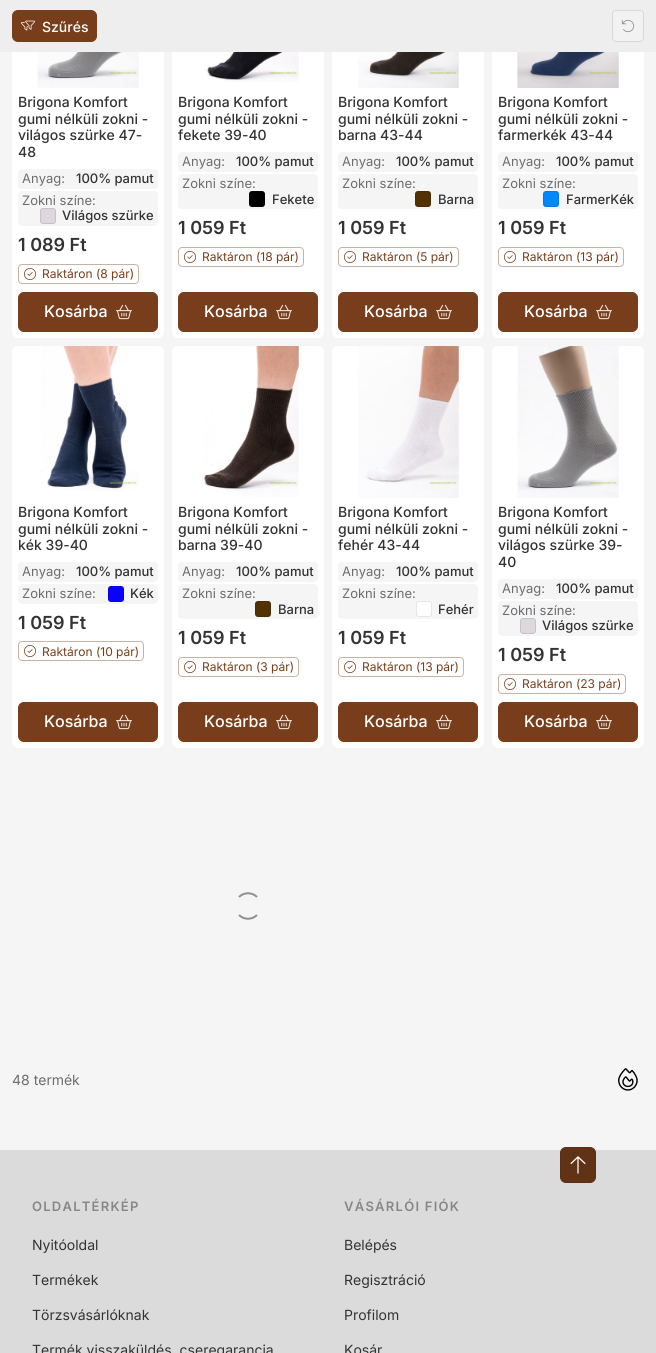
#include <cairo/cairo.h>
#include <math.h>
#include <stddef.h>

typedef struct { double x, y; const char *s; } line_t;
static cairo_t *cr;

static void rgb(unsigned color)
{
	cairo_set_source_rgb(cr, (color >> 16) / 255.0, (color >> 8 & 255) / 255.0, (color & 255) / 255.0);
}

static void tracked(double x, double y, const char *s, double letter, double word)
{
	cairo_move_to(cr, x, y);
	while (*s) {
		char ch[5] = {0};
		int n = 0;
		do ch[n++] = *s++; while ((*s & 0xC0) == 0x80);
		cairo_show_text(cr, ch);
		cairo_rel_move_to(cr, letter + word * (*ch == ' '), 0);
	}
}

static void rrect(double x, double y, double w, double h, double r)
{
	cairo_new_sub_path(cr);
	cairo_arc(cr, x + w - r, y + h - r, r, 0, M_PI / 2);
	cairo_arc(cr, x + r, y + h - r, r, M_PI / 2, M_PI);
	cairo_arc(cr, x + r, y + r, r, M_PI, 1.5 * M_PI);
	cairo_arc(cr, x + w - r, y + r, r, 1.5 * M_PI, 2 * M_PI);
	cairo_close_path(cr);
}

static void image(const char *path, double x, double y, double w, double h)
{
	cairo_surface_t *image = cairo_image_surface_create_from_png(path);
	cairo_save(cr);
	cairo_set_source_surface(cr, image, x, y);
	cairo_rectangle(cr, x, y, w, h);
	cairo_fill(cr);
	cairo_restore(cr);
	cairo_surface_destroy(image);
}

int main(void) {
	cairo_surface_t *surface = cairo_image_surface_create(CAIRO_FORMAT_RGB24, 656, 1353);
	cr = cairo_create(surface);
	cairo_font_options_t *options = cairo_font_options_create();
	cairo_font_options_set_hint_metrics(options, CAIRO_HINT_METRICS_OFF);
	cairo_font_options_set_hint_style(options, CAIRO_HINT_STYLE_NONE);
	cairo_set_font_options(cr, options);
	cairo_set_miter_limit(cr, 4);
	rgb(0xf5f5f5);
	cairo_paint(cr);
	rgb(0xffffff);
	rrect(12, -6, 152, 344, 6);
	cairo_fill(cr);
	rrect(172, -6, 152, 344, 6);
	cairo_fill(cr);
	rrect(332, -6, 152, 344, 6);
	cairo_fill(cr);
	rrect(492, -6, 152, 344, 6);
	cairo_fill(cr);
	rgb(0xeeeeee);
	cairo_rectangle(cr, 0, 0, 656, 52);
	cairo_fill(cr);
	rgb(0x783e1b);
	rrect(12.5, 10.5, 84, 31, 5.5);
	cairo_fill_preserve(cr);
	cairo_set_line_width(cr, 1);
	cairo_stroke(cr);
	image("img/1.png", 21, 20, 14, 11);
	rgb(0xf2f2f2);
	rrect(612.5, 10.5, 31, 31, 3.5);
	cairo_fill_preserve(cr);
	rgb(0xd8d8d8);
	cairo_stroke(cr);
	image("img/2.png", 621, 19, 14, 14);
	image("img/3.png", 37, 52, 102, 36);
	rgb(0xf5f5f5);
	rrect(18, 169, 140, 20, 4);
	cairo_fill(cr);
	rrect(18, 191, 140, 35, 4);
	cairo_fill(cr);
	rgb(0xded7de);
	rrect(40, 208, 16, 16, 3);
	cairo_fill(cr);
	rrect(40.5, 208.5, 15, 15, 2.5);
	cairo_set_source_rgba(cr, 0, 0, 0, 0.1);
	cairo_stroke(cr);
	rrect(18.5, 264.5, 120, 19, 3.5);
	rgb(0xc9b2a4);
	cairo_stroke(cr);
	image("img/4.png", 24, 268, 12, 12);
	rgb(0x783e1b);
	rrect(18.5, 292.5, 139, 39, 5.5);
	cairo_fill_preserve(cr);
	cairo_stroke(cr);
	image("img/5.png", 116, 304, 16, 16);
	image("img/6.png", 207, 52, 92, 30);
	rgb(0xf5f5f5);
	rrect(178, 152, 140, 20, 4);
	cairo_fill(cr);
	rrect(178, 174, 140, 35, 4);
	cairo_fill(cr);
	rgb(0x000000);
	rrect(249, 191, 16, 16, 3);
	cairo_fill(cr);
	rrect(249.5, 191.5, 15, 15, 2.5);
	cairo_set_source_rgba(cr, 0, 0, 0, 0.1);
	cairo_stroke(cr);
	rrect(178.5, 247.5, 125, 19, 3.5);
	rgb(0xc9b2a4);
	cairo_stroke(cr);
	image("img/4.png", 184, 251, 12, 12);
	rgb(0x783e1b);
	rrect(178.5, 292.5, 139, 39, 5.5);
	cairo_fill_preserve(cr);
	cairo_stroke(cr);
	image("img/5.png", 276, 304, 16, 16);
	image("img/7.png", 358, 52, 101, 36);
	rgb(0xf5f5f5);
	rrect(338, 152, 140, 20, 4);
	cairo_fill(cr);
	rrect(338, 174, 140, 35, 4);
	cairo_fill(cr);
	rgb(0x523203);
	rrect(415, 191, 16, 16, 3);
	cairo_fill(cr);
	rrect(415.5, 191.5, 15, 15, 2.5);
	cairo_set_source_rgba(cr, 0, 0, 0, 0.1);
	cairo_stroke(cr);
	rrect(338.5, 247.5, 120, 19, 3.5);
	rgb(0xc9b2a4);
	cairo_stroke(cr);
	image("img/4.png", 344, 251, 12, 12);
	rgb(0x783e1b);
	rrect(338.5, 292.5, 139, 39, 5.5);
	cairo_fill_preserve(cr);
	cairo_stroke(cr);
	image("img/5.png", 436, 304, 16, 16);
	image("img/8.png", 517, 52, 102, 36);
	rgb(0xf5f5f5);
	rrect(498, 152, 140, 20, 4);
	cairo_fill(cr);
	rrect(498, 174, 140, 35, 4);
	cairo_fill(cr);
	rgb(0x0088ff);
	rrect(543, 191, 16, 16, 3);
	cairo_fill(cr);
	rrect(543.5, 191.5, 15, 15, 2.5);
	cairo_set_source_rgba(cr, 0, 0, 0, 0.1);
	cairo_stroke(cr);
	rrect(498.5, 247.5, 125, 19, 3.5);
	rgb(0xc9b2a4);
	cairo_stroke(cr);
	image("img/4.png", 504, 251, 12, 12);
	rgb(0x783e1b);
	rrect(498.5, 292.5, 139, 39, 5.5);
	cairo_fill_preserve(cr);
	cairo_stroke(cr);
	image("img/5.png", 596, 304, 16, 16);
	rgb(0xffffff);
	rrect(12, 346, 152, 402, 6);
	cairo_fill(cr);
	image("img/9.png", 41, 346, 98, 145);
	rgb(0xf5f5f5);
	rrect(18, 562, 140, 20, 4);
	cairo_fill(cr);
	rrect(18, 584, 140, 20, 4);
	cairo_fill(cr);
	rgb(0x0900ff);
	rrect(108, 586, 16, 16, 3);
	cairo_fill(cr);
	rrect(108.5, 586.5, 15, 15, 2.5);
	cairo_set_source_rgba(cr, 0, 0, 0, 0.1);
	cairo_stroke(cr);
	rrect(18.5, 641.5, 125, 19, 3.5);
	rgb(0xc9b2a4);
	cairo_stroke(cr);
	image("img/4.png", 24, 645, 12, 12);
	rgb(0x783e1b);
	rrect(18.5, 702.5, 139, 39, 5.5);
	cairo_fill_preserve(cr);
	cairo_stroke(cr);
	image("img/5.png", 116, 714, 16, 16);
	rgb(0xffffff);
	rrect(172, 346, 152, 402, 6);
	cairo_fill(cr);
	image("img/10.png", 203, 346, 96, 151);
	rgb(0xf5f5f5);
	rrect(178, 562, 140, 20, 4);
	cairo_fill(cr);
	rrect(178, 584, 140, 35, 4);
	cairo_fill(cr);
	rgb(0x523203);
	rrect(255, 601, 16, 16, 3);
	cairo_fill(cr);
	rrect(255.5, 601.5, 15, 15, 2.5);
	cairo_set_source_rgba(cr, 0, 0, 0, 0.1);
	cairo_stroke(cr);
	rrect(178.5, 657.5, 120, 19, 3.5);
	rgb(0xc9b2a4);
	cairo_stroke(cr);
	image("img/4.png", 184, 661, 12, 12);
	rgb(0x783e1b);
	rrect(178.5, 702.5, 139, 39, 5.5);
	cairo_fill_preserve(cr);
	cairo_stroke(cr);
	image("img/5.png", 276, 714, 16, 16);
	rgb(0xffffff);
	rrect(332, 346, 152, 402, 6);
	cairo_fill(cr);
	image("img/11.png", 358, 346, 101, 152);
	rgb(0xf5f5f5);
	rrect(338, 562, 140, 20, 4);
	cairo_fill(cr);
	rrect(338, 584, 140, 35, 4);
	cairo_fill(cr);
	rgb(0xffffff);
	rrect(416, 601, 16, 16, 3);
	cairo_fill(cr);
	rrect(416.5, 601.5, 15, 15, 2.5);
	cairo_set_source_rgba(cr, 0, 0, 0, 0.1);
	cairo_stroke(cr);
	rrect(338.5, 657.5, 125, 19, 3.5);
	rgb(0xc9b2a4);
	cairo_stroke(cr);
	image("img/4.png", 344, 661, 12, 12);
	rgb(0x783e1b);
	rrect(338.5, 702.5, 139, 39, 5.5);
	cairo_fill_preserve(cr);
	cairo_stroke(cr);
	image("img/5.png", 436, 714, 16, 16);
	rgb(0xffffff);
	rrect(492, 346, 152, 402, 6);
	cairo_fill(cr);
	image("img/12.png", 517, 346, 102, 152);
	rgb(0xf5f5f5);
	rrect(498, 579, 140, 20, 4);
	cairo_fill(cr);
	rrect(498, 601, 140, 35, 4);
	cairo_fill(cr);
	rgb(0xded7de);
	rrect(520, 618, 16, 16, 3);
	cairo_fill(cr);
	rrect(520.5, 618.5, 15, 15, 2.5);
	cairo_set_source_rgba(cr, 0, 0, 0, 0.1);
	cairo_stroke(cr);
	rrect(498.5, 674.5, 127, 19, 3.5);
	rgb(0xc9b2a4);
	cairo_stroke(cr);
	image("img/4.png", 504, 678, 12, 12);
	rgb(0x783e1b);
	rrect(498.5, 702.5, 139, 39, 5.5);
	cairo_fill_preserve(cr);
	cairo_stroke(cr);
	image("img/5.png", 596, 714, 16, 16);
	cairo_new_path(cr);
	cairo_move_to(cr, 239, 897);
	cairo_curve_to(cr, 244, 892, 252, 892, 257, 897);
	cairo_move_to(cr, 257, 915);
	cairo_curve_to(cr, 252, 920, 244, 920, 239, 915);
	rgb(0x8f8f8f);
	cairo_set_line_width(cr, 2);
	cairo_stroke(cr);
	image("img/13.png", 618, 1068, 20, 23);
	rgb(0xdbdbdb);
	cairo_rectangle(cr, 0, 1150, 656, 203);
	cairo_fill(cr);
	rgb(0x603216);
	rrect(560.5, 1147.5, 35, 35, 5.5);
	cairo_fill_preserve(cr);
	rgb(0x5a2f14);
	cairo_set_line_width(cr, 1);
	cairo_stroke(cr);
	image("img/14.png", 570, 1156, 16, 18);
	cairo_select_font_face(cr, "Inter Medium", CAIRO_FONT_SLANT_NORMAL, CAIRO_FONT_WEIGHT_NORMAL);
	cairo_set_font_size(cr, 14);
	rgb(0xffffff);
	cairo_move_to(cr, 42, 32);
	cairo_show_text(cr, "Szűrés");
	rgb(0x333333);
	{
		static const line_t items[] = {
			{18, 107, "Brigona Komfort"},
			{18, 124, "gumi nélküli zokni -"},
			{18, 140, "világos szürke 47-"},
			{18, 157, "48"},
		};
		for (size_t i = 0; i < sizeof items / sizeof *items; i++) {
			cairo_move_to(cr, items[i].x, items[i].y);
			cairo_show_text(cr, items[i].s);
		}
	}
	cairo_select_font_face(cr, "Inter", CAIRO_FONT_SLANT_NORMAL, CAIRO_FONT_WEIGHT_NORMAL);
	cairo_set_font_size(cr, 13);
	rgb(0x6d6d6d);
	cairo_move_to(cr, 22, 183);
	cairo_show_text(cr, "Anyag:");
	cairo_select_font_face(cr, "Inter Medium", CAIRO_FONT_SLANT_NORMAL, CAIRO_FONT_WEIGHT_NORMAL);
	rgb(0x333333);
	cairo_move_to(cr, 76, 183);
	cairo_show_text(cr, "100% pamut");
	cairo_select_font_face(cr, "Inter", CAIRO_FONT_SLANT_NORMAL, CAIRO_FONT_WEIGHT_NORMAL);
	rgb(0x6d6d6d);
	cairo_move_to(cr, 22, 205);
	cairo_show_text(cr, "Zokni színe:");
	cairo_select_font_face(cr, "Inter Medium", CAIRO_FONT_SLANT_NORMAL, CAIRO_FONT_WEIGHT_NORMAL);
	rgb(0x333333);
	cairo_move_to(cr, 62, 220);
	cairo_show_text(cr, "Világos szürke");
	cairo_select_font_face(cr, "Inter SemiBold", CAIRO_FONT_SLANT_NORMAL, CAIRO_FONT_WEIGHT_NORMAL);
	cairo_set_font_size(cr, 18);
	cairo_move_to(cr, 18, 251);
	cairo_show_text(cr, "1 089 Ft");
	cairo_select_font_face(cr, "Inter", CAIRO_FONT_SLANT_NORMAL, CAIRO_FONT_WEIGHT_NORMAL);
	cairo_set_font_size(cr, 12);
	rgb(0x783e1b);
	cairo_move_to(cr, 42, 278);
	cairo_show_text(cr, "Raktáron (8 pár)");
	cairo_select_font_face(cr, "Inter Medium", CAIRO_FONT_SLANT_NORMAL, CAIRO_FONT_WEIGHT_NORMAL);
	cairo_set_font_size(cr, 16);
	rgb(0xffffff);
	cairo_move_to(cr, 44, 317);
	cairo_show_text(cr, "Kosárba");
	cairo_set_font_size(cr, 14);
	rgb(0x333333);
	{
		static const line_t items[] = {
			{178, 107, "Brigona Komfort"},
			{178, 124, "gumi nélküli zokni -"},
			{178, 140, "fekete 39-40"},
		};
		for (size_t i = 0; i < sizeof items / sizeof *items; i++) {
			cairo_move_to(cr, items[i].x, items[i].y);
			cairo_show_text(cr, items[i].s);
		}
	}
	cairo_select_font_face(cr, "Inter", CAIRO_FONT_SLANT_NORMAL, CAIRO_FONT_WEIGHT_NORMAL);
	cairo_set_font_size(cr, 13);
	rgb(0x6d6d6d);
	cairo_move_to(cr, 182, 166);
	cairo_show_text(cr, "Anyag:");
	cairo_select_font_face(cr, "Inter Medium", CAIRO_FONT_SLANT_NORMAL, CAIRO_FONT_WEIGHT_NORMAL);
	rgb(0x333333);
	cairo_move_to(cr, 236, 166);
	cairo_show_text(cr, "100% pamut");
	cairo_select_font_face(cr, "Inter", CAIRO_FONT_SLANT_NORMAL, CAIRO_FONT_WEIGHT_NORMAL);
	rgb(0x6d6d6d);
	cairo_move_to(cr, 182, 188);
	cairo_show_text(cr, "Zokni színe:");
	cairo_select_font_face(cr, "Inter Medium", CAIRO_FONT_SLANT_NORMAL, CAIRO_FONT_WEIGHT_NORMAL);
	rgb(0x333333);
	cairo_move_to(cr, 272, 204);
	cairo_show_text(cr, "Fekete");
	cairo_select_font_face(cr, "Inter SemiBold", CAIRO_FONT_SLANT_NORMAL, CAIRO_FONT_WEIGHT_NORMAL);
	cairo_set_font_size(cr, 18);
	cairo_move_to(cr, 178, 234);
	cairo_show_text(cr, "1 059 Ft");
	cairo_select_font_face(cr, "Inter", CAIRO_FONT_SLANT_NORMAL, CAIRO_FONT_WEIGHT_NORMAL);
	cairo_set_font_size(cr, 12);
	rgb(0x783e1b);
	cairo_move_to(cr, 202, 261);
	cairo_show_text(cr, "Raktáron (18 pár)");
	cairo_select_font_face(cr, "Inter Medium", CAIRO_FONT_SLANT_NORMAL, CAIRO_FONT_WEIGHT_NORMAL);
	cairo_set_font_size(cr, 16);
	rgb(0xffffff);
	cairo_move_to(cr, 204, 317);
	cairo_show_text(cr, "Kosárba");
	cairo_set_font_size(cr, 14);
	rgb(0x333333);
	{
		static const line_t items[] = {
			{338, 107, "Brigona Komfort"},
			{338, 124, "gumi nélküli zokni -"},
			{338, 140, "barna 43-44"},
		};
		for (size_t i = 0; i < sizeof items / sizeof *items; i++) {
			cairo_move_to(cr, items[i].x, items[i].y);
			cairo_show_text(cr, items[i].s);
		}
	}
	cairo_select_font_face(cr, "Inter", CAIRO_FONT_SLANT_NORMAL, CAIRO_FONT_WEIGHT_NORMAL);
	cairo_set_font_size(cr, 13);
	rgb(0x6d6d6d);
	cairo_move_to(cr, 342, 166);
	cairo_show_text(cr, "Anyag:");
	cairo_select_font_face(cr, "Inter Medium", CAIRO_FONT_SLANT_NORMAL, CAIRO_FONT_WEIGHT_NORMAL);
	rgb(0x333333);
	cairo_move_to(cr, 396, 166);
	cairo_show_text(cr, "100% pamut");
	cairo_select_font_face(cr, "Inter", CAIRO_FONT_SLANT_NORMAL, CAIRO_FONT_WEIGHT_NORMAL);
	rgb(0x6d6d6d);
	cairo_move_to(cr, 342, 188);
	cairo_show_text(cr, "Zokni színe:");
	cairo_select_font_face(cr, "Inter Medium", CAIRO_FONT_SLANT_NORMAL, CAIRO_FONT_WEIGHT_NORMAL);
	rgb(0x333333);
	cairo_move_to(cr, 438, 204);
	cairo_show_text(cr, "Barna");
	cairo_select_font_face(cr, "Inter SemiBold", CAIRO_FONT_SLANT_NORMAL, CAIRO_FONT_WEIGHT_NORMAL);
	cairo_set_font_size(cr, 18);
	cairo_move_to(cr, 338, 234);
	cairo_show_text(cr, "1 059 Ft");
	cairo_select_font_face(cr, "Inter", CAIRO_FONT_SLANT_NORMAL, CAIRO_FONT_WEIGHT_NORMAL);
	cairo_set_font_size(cr, 12);
	rgb(0x783e1b);
	cairo_move_to(cr, 362, 261);
	cairo_show_text(cr, "Raktáron (5 pár)");
	cairo_select_font_face(cr, "Inter Medium", CAIRO_FONT_SLANT_NORMAL, CAIRO_FONT_WEIGHT_NORMAL);
	cairo_set_font_size(cr, 16);
	rgb(0xffffff);
	cairo_move_to(cr, 364, 317);
	cairo_show_text(cr, "Kosárba");
	cairo_set_font_size(cr, 14);
	rgb(0x333333);
	{
		static const line_t items[] = {
			{498, 107, "Brigona Komfort"},
			{498, 124, "gumi nélküli zokni -"},
			{498, 140, "farmerkék 43-44"},
		};
		for (size_t i = 0; i < sizeof items / sizeof *items; i++) {
			cairo_move_to(cr, items[i].x, items[i].y);
			cairo_show_text(cr, items[i].s);
		}
	}
	cairo_select_font_face(cr, "Inter", CAIRO_FONT_SLANT_NORMAL, CAIRO_FONT_WEIGHT_NORMAL);
	cairo_set_font_size(cr, 13);
	rgb(0x6d6d6d);
	cairo_move_to(cr, 502, 166);
	cairo_show_text(cr, "Anyag:");
	cairo_select_font_face(cr, "Inter Medium", CAIRO_FONT_SLANT_NORMAL, CAIRO_FONT_WEIGHT_NORMAL);
	rgb(0x333333);
	cairo_move_to(cr, 556, 166);
	cairo_show_text(cr, "100% pamut");
	cairo_select_font_face(cr, "Inter", CAIRO_FONT_SLANT_NORMAL, CAIRO_FONT_WEIGHT_NORMAL);
	rgb(0x6d6d6d);
	cairo_move_to(cr, 502, 188);
	cairo_show_text(cr, "Zokni színe:");
	cairo_select_font_face(cr, "Inter Medium", CAIRO_FONT_SLANT_NORMAL, CAIRO_FONT_WEIGHT_NORMAL);
	rgb(0x333333);
	cairo_move_to(cr, 566, 204);
	cairo_show_text(cr, "FarmerKék");
	cairo_select_font_face(cr, "Inter SemiBold", CAIRO_FONT_SLANT_NORMAL, CAIRO_FONT_WEIGHT_NORMAL);
	cairo_set_font_size(cr, 18);
	cairo_move_to(cr, 498, 234);
	cairo_show_text(cr, "1 059 Ft");
	cairo_select_font_face(cr, "Inter", CAIRO_FONT_SLANT_NORMAL, CAIRO_FONT_WEIGHT_NORMAL);
	cairo_set_font_size(cr, 12);
	rgb(0x783e1b);
	cairo_move_to(cr, 522, 261);
	cairo_show_text(cr, "Raktáron (13 pár)");
	cairo_select_font_face(cr, "Inter Medium", CAIRO_FONT_SLANT_NORMAL, CAIRO_FONT_WEIGHT_NORMAL);
	cairo_set_font_size(cr, 16);
	rgb(0xffffff);
	cairo_move_to(cr, 524, 317);
	cairo_show_text(cr, "Kosárba");
	cairo_set_font_size(cr, 14);
	rgb(0x333333);
	{
		static const line_t items[] = {
			{18, 517, "Brigona Komfort"},
			{18, 534, "gumi nélküli zokni -"},
			{18, 550, "kék 39-40"},
		};
		for (size_t i = 0; i < sizeof items / sizeof *items; i++) {
			cairo_move_to(cr, items[i].x, items[i].y);
			cairo_show_text(cr, items[i].s);
		}
	}
	cairo_select_font_face(cr, "Inter", CAIRO_FONT_SLANT_NORMAL, CAIRO_FONT_WEIGHT_NORMAL);
	cairo_set_font_size(cr, 13);
	rgb(0x6d6d6d);
	cairo_move_to(cr, 22, 576);
	cairo_show_text(cr, "Anyag:");
	cairo_select_font_face(cr, "Inter Medium", CAIRO_FONT_SLANT_NORMAL, CAIRO_FONT_WEIGHT_NORMAL);
	rgb(0x333333);
	cairo_move_to(cr, 76, 576);
	cairo_show_text(cr, "100% pamut");
	cairo_select_font_face(cr, "Inter", CAIRO_FONT_SLANT_NORMAL, CAIRO_FONT_WEIGHT_NORMAL);
	rgb(0x6d6d6d);
	cairo_move_to(cr, 22, 598);
	cairo_show_text(cr, "Zokni színe:");
	cairo_select_font_face(cr, "Inter Medium", CAIRO_FONT_SLANT_NORMAL, CAIRO_FONT_WEIGHT_NORMAL);
	rgb(0x333333);
	cairo_move_to(cr, 130, 598);
	cairo_show_text(cr, "Kék");
	cairo_select_font_face(cr, "Inter SemiBold", CAIRO_FONT_SLANT_NORMAL, CAIRO_FONT_WEIGHT_NORMAL);
	cairo_set_font_size(cr, 18);
	cairo_move_to(cr, 18, 629);
	cairo_show_text(cr, "1 059 Ft");
	cairo_select_font_face(cr, "Inter", CAIRO_FONT_SLANT_NORMAL, CAIRO_FONT_WEIGHT_NORMAL);
	cairo_set_font_size(cr, 12);
	rgb(0x783e1b);
	cairo_move_to(cr, 42, 656);
	cairo_show_text(cr, "Raktáron (10 pár)");
	cairo_select_font_face(cr, "Inter Medium", CAIRO_FONT_SLANT_NORMAL, CAIRO_FONT_WEIGHT_NORMAL);
	cairo_set_font_size(cr, 16);
	rgb(0xffffff);
	cairo_move_to(cr, 44, 727);
	cairo_show_text(cr, "Kosárba");
	cairo_set_font_size(cr, 14);
	rgb(0x333333);
	{
		static const line_t items[] = {
			{178, 517, "Brigona Komfort"},
			{178, 534, "gumi nélküli zokni -"},
			{178, 550, "barna 39-40"},
		};
		for (size_t i = 0; i < sizeof items / sizeof *items; i++) {
			cairo_move_to(cr, items[i].x, items[i].y);
			cairo_show_text(cr, items[i].s);
		}
	}
	cairo_select_font_face(cr, "Inter", CAIRO_FONT_SLANT_NORMAL, CAIRO_FONT_WEIGHT_NORMAL);
	cairo_set_font_size(cr, 13);
	rgb(0x6d6d6d);
	cairo_move_to(cr, 182, 576);
	cairo_show_text(cr, "Anyag:");
	cairo_select_font_face(cr, "Inter Medium", CAIRO_FONT_SLANT_NORMAL, CAIRO_FONT_WEIGHT_NORMAL);
	rgb(0x333333);
	cairo_move_to(cr, 236, 576);
	cairo_show_text(cr, "100% pamut");
	cairo_select_font_face(cr, "Inter", CAIRO_FONT_SLANT_NORMAL, CAIRO_FONT_WEIGHT_NORMAL);
	rgb(0x6d6d6d);
	cairo_move_to(cr, 182, 598);
	cairo_show_text(cr, "Zokni színe:");
	cairo_select_font_face(cr, "Inter Medium", CAIRO_FONT_SLANT_NORMAL, CAIRO_FONT_WEIGHT_NORMAL);
	rgb(0x333333);
	cairo_move_to(cr, 278, 614);
	cairo_show_text(cr, "Barna");
	cairo_select_font_face(cr, "Inter SemiBold", CAIRO_FONT_SLANT_NORMAL, CAIRO_FONT_WEIGHT_NORMAL);
	cairo_set_font_size(cr, 18);
	cairo_move_to(cr, 178, 644);
	cairo_show_text(cr, "1 059 Ft");
	cairo_select_font_face(cr, "Inter", CAIRO_FONT_SLANT_NORMAL, CAIRO_FONT_WEIGHT_NORMAL);
	cairo_set_font_size(cr, 12);
	rgb(0x783e1b);
	cairo_move_to(cr, 202, 671);
	cairo_show_text(cr, "Raktáron (3 pár)");
	cairo_select_font_face(cr, "Inter Medium", CAIRO_FONT_SLANT_NORMAL, CAIRO_FONT_WEIGHT_NORMAL);
	cairo_set_font_size(cr, 16);
	rgb(0xffffff);
	cairo_move_to(cr, 204, 727);
	cairo_show_text(cr, "Kosárba");
	cairo_set_font_size(cr, 14);
	rgb(0x333333);
	{
		static const line_t items[] = {
			{338, 517, "Brigona Komfort"},
			{338, 534, "gumi nélküli zokni -"},
			{338, 550, "fehér 43-44"},
		};
		for (size_t i = 0; i < sizeof items / sizeof *items; i++) {
			cairo_move_to(cr, items[i].x, items[i].y);
			cairo_show_text(cr, items[i].s);
		}
	}
	cairo_select_font_face(cr, "Inter", CAIRO_FONT_SLANT_NORMAL, CAIRO_FONT_WEIGHT_NORMAL);
	cairo_set_font_size(cr, 13);
	rgb(0x6d6d6d);
	cairo_move_to(cr, 342, 576);
	cairo_show_text(cr, "Anyag:");
	cairo_select_font_face(cr, "Inter Medium", CAIRO_FONT_SLANT_NORMAL, CAIRO_FONT_WEIGHT_NORMAL);
	rgb(0x333333);
	cairo_move_to(cr, 396, 576);
	cairo_show_text(cr, "100% pamut");
	cairo_select_font_face(cr, "Inter", CAIRO_FONT_SLANT_NORMAL, CAIRO_FONT_WEIGHT_NORMAL);
	rgb(0x6d6d6d);
	cairo_move_to(cr, 342, 598);
	cairo_show_text(cr, "Zokni színe:");
	cairo_select_font_face(cr, "Inter Medium", CAIRO_FONT_SLANT_NORMAL, CAIRO_FONT_WEIGHT_NORMAL);
	rgb(0x333333);
	cairo_move_to(cr, 438, 614);
	cairo_show_text(cr, "Fehér");
	cairo_select_font_face(cr, "Inter SemiBold", CAIRO_FONT_SLANT_NORMAL, CAIRO_FONT_WEIGHT_NORMAL);
	cairo_set_font_size(cr, 18);
	cairo_move_to(cr, 338, 644);
	cairo_show_text(cr, "1 059 Ft");
	cairo_select_font_face(cr, "Inter", CAIRO_FONT_SLANT_NORMAL, CAIRO_FONT_WEIGHT_NORMAL);
	cairo_set_font_size(cr, 12);
	rgb(0x783e1b);
	cairo_move_to(cr, 362, 671);
	cairo_show_text(cr, "Raktáron (13 pár)");
	cairo_select_font_face(cr, "Inter Medium", CAIRO_FONT_SLANT_NORMAL, CAIRO_FONT_WEIGHT_NORMAL);
	cairo_set_font_size(cr, 16);
	rgb(0xffffff);
	cairo_move_to(cr, 364, 727);
	cairo_show_text(cr, "Kosárba");
	cairo_set_font_size(cr, 14);
	rgb(0x333333);
	{
		static const line_t items[] = {
			{498, 517, "Brigona Komfort"},
			{498, 534, "gumi nélküli zokni -"},
			{498, 550, "világos szürke 39-"},
			{498, 567, "40"},
		};
		for (size_t i = 0; i < sizeof items / sizeof *items; i++) {
			cairo_move_to(cr, items[i].x, items[i].y);
			cairo_show_text(cr, items[i].s);
		}
	}
	cairo_select_font_face(cr, "Inter", CAIRO_FONT_SLANT_NORMAL, CAIRO_FONT_WEIGHT_NORMAL);
	cairo_set_font_size(cr, 13);
	rgb(0x6d6d6d);
	cairo_move_to(cr, 502, 593);
	cairo_show_text(cr, "Anyag:");
	cairo_select_font_face(cr, "Inter Medium", CAIRO_FONT_SLANT_NORMAL, CAIRO_FONT_WEIGHT_NORMAL);
	rgb(0x333333);
	cairo_move_to(cr, 556, 593);
	cairo_show_text(cr, "100% pamut");
	cairo_select_font_face(cr, "Inter", CAIRO_FONT_SLANT_NORMAL, CAIRO_FONT_WEIGHT_NORMAL);
	rgb(0x6d6d6d);
	cairo_move_to(cr, 502, 615);
	cairo_show_text(cr, "Zokni színe:");
	cairo_select_font_face(cr, "Inter Medium", CAIRO_FONT_SLANT_NORMAL, CAIRO_FONT_WEIGHT_NORMAL);
	rgb(0x333333);
	cairo_move_to(cr, 542, 630);
	cairo_show_text(cr, "Világos szürke");
	cairo_select_font_face(cr, "Inter SemiBold", CAIRO_FONT_SLANT_NORMAL, CAIRO_FONT_WEIGHT_NORMAL);
	cairo_set_font_size(cr, 18);
	cairo_move_to(cr, 498, 661);
	cairo_show_text(cr, "1 059 Ft");
	cairo_select_font_face(cr, "Inter", CAIRO_FONT_SLANT_NORMAL, CAIRO_FONT_WEIGHT_NORMAL);
	cairo_set_font_size(cr, 12);
	rgb(0x783e1b);
	cairo_move_to(cr, 522, 688);
	cairo_show_text(cr, "Raktáron (23 pár)");
	cairo_select_font_face(cr, "Inter Medium", CAIRO_FONT_SLANT_NORMAL, CAIRO_FONT_WEIGHT_NORMAL);
	cairo_set_font_size(cr, 16);
	rgb(0xffffff);
	cairo_move_to(cr, 524, 727);
	cairo_show_text(cr, "Kosárba");
	cairo_select_font_face(cr, "Inter", CAIRO_FONT_SLANT_NORMAL, CAIRO_FONT_WEIGHT_NORMAL);
	cairo_set_font_size(cr, 14);
	rgb(0x6d6d6d);
	cairo_move_to(cr, 12, 1085);
	cairo_show_text(cr, "48 termék");
	cairo_select_font_face(cr, "Inter SemiBold", CAIRO_FONT_SLANT_NORMAL, CAIRO_FONT_WEIGHT_NORMAL);
	cairo_set_font_size(cr, 13);
	rgb(0x878787);
	tracked(32, 1211, "OLDALTÉRKÉP", 1.25, 0);
	cairo_select_font_face(cr, "Inter", CAIRO_FONT_SLANT_NORMAL, CAIRO_FONT_WEIGHT_NORMAL);
	cairo_set_font_size(cr, 14);
	rgb(0x333333);
	{
		static const line_t items[] = {
			{32, 1250, "Nyitóoldal"},
			{32, 1285, "Termékek"},
			{32, 1320, "Törzsvásárlóknak"},
			{32, 1355, "Termék visszaküldés, cseregarancia"},
		};
		for (size_t i = 0; i < sizeof items / sizeof *items; i++) {
			cairo_move_to(cr, items[i].x, items[i].y);
			cairo_show_text(cr, items[i].s);
		}
	}
	cairo_select_font_face(cr, "Inter SemiBold", CAIRO_FONT_SLANT_NORMAL, CAIRO_FONT_WEIGHT_NORMAL);
	cairo_set_font_size(cr, 13);
	rgb(0x878787);
	tracked(344, 1211, "VÁSÁRLÓI FIÓK", 1.25, 0);
	cairo_select_font_face(cr, "Inter", CAIRO_FONT_SLANT_NORMAL, CAIRO_FONT_WEIGHT_NORMAL);
	cairo_set_font_size(cr, 14);
	rgb(0x333333);
	{
		static const line_t items[] = {
			{344, 1250, "Belépés"},
			{344, 1285, "Regisztráció"},
			{344, 1320, "Profilom"},
			{344, 1355, "Kosár"},
		};
		for (size_t i = 0; i < sizeof items / sizeof *items; i++) {
			cairo_move_to(cr, items[i].x, items[i].y);
			cairo_show_text(cr, items[i].s);
		}
	}
	cairo_surface_write_to_png(surface, "page.png");
	cairo_font_options_destroy(options);
	cairo_destroy(cr);
	cairo_surface_destroy(surface);
	return 0;
}
